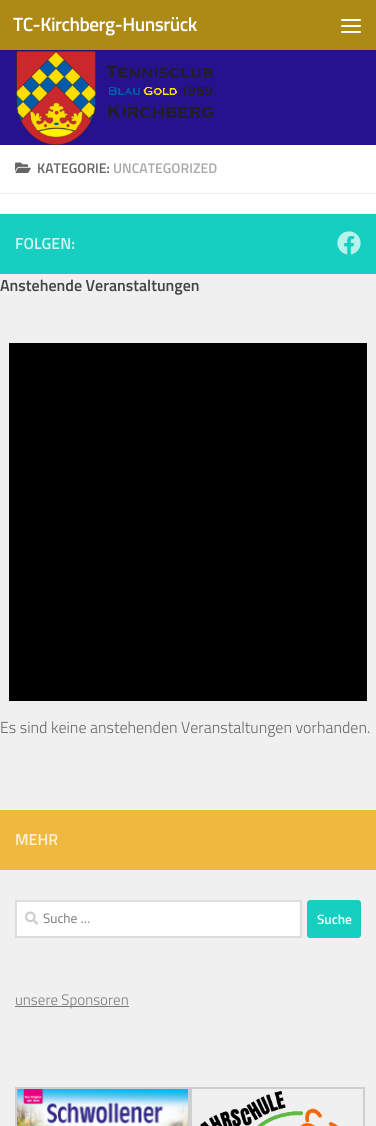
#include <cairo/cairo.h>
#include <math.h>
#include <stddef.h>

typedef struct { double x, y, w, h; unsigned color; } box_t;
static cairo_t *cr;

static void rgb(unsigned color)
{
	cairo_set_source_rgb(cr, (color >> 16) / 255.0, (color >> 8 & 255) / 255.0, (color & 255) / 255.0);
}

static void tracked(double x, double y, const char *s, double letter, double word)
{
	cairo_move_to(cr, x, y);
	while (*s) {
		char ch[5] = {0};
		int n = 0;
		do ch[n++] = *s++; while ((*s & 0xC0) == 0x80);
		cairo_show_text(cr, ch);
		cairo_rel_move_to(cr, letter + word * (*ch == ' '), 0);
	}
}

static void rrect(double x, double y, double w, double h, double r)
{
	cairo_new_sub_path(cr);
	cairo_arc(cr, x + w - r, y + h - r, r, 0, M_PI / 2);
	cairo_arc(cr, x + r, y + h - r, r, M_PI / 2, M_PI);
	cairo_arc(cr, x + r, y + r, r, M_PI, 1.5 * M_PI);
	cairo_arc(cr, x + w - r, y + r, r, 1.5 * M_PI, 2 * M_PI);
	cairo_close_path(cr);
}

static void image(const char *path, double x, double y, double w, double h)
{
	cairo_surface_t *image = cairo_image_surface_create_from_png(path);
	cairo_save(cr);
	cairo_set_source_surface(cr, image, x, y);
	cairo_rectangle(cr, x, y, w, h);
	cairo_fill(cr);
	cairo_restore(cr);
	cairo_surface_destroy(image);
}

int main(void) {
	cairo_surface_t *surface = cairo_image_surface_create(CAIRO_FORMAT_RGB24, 376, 1126);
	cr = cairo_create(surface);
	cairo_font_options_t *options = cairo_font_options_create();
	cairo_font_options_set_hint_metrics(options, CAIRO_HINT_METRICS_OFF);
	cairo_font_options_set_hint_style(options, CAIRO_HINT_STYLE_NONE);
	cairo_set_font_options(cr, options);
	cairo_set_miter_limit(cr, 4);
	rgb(0xffffff);
	cairo_paint(cr);
	rgb(0x27128e);
	cairo_rectangle(cr, 0, 50, 376, 95);
	cairo_fill(cr);
	rgb(0xad8a16);
	cairo_rectangle(cr, 0, 0, 376, 50);
	cairo_fill(cr);
	rgb(0xffffff);
	rrect(341, 19, 20, 2, 1);
	cairo_fill(cr);
	rrect(341, 25, 20, 2, 1);
	cairo_fill(cr);
	rrect(341, 31, 20, 2, 1);
	cairo_fill(cr);
	image("img/1.png", 16, 50, 198, 95);
	rgb(0xeeeeee);
	cairo_rectangle(cr, 0, 193, 376, 1);
	cairo_fill(cr);
	image("img/2.png", 15, 162, 16, 11);
	rgb(0xf0f0f0);
	cairo_rectangle(cr, 0, 274, 376, 536);
	cairo_fill(cr);
	rgb(0x16cfc1);
	cairo_rectangle(cr, 0, 214, 376, 60);
	cairo_fill(cr);
	image("img/3.png", 337, 231, 24, 24);
	{
		static const box_t items[] = {
			{9, 343, 358, 358, 0x000000},
			{0, 870, 376, 256, 0xf0f0f0},
			{0, 810, 376, 60, 0xefb93f},
		};
		for (size_t i = 0; i < sizeof items / sizeof *items; i++) {
			rgb(items[i].color);
			cairo_rectangle(cr, items[i].x, items[i].y, items[i].w, items[i].h);
			cairo_fill(cr);
		}
	}
	rgb(0xffffff);
	cairo_rectangle(cr, 16, 901, 285, 36);
	cairo_fill_preserve(cr);
	rgb(0xdddddd);
	cairo_stroke(cr);
	image("img/4.png", 25, 911, 13, 14);
	rgb(0x16cfc1);
	rrect(307, 900, 54, 38, 3);
	cairo_fill(cr);
	rgb(0x777777);
	cairo_rectangle(cr, 15, 1006, 114, 1);
	cairo_fill(cr);
	cairo_rectangle(cr, 16, 1088, 175, 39);
	rgb(0xcfcfcf);
	cairo_stroke(cr);
	image("img/5.png", 17, 1089, 174, 37);
	cairo_rectangle(cr, 189, 1088, 175, 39);
	cairo_stroke(cr);
	image("img/6.png", 200, 1090, 139, 36);
	cairo_select_font_face(cr, "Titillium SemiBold", CAIRO_FONT_SLANT_NORMAL, CAIRO_FONT_WEIGHT_NORMAL);
	cairo_set_font_size(cr, 19.25);
	rgb(0xffffff);
	tracked(13, 31, "TC-Kirchberg-Hunsrück", -0.5, 0);
	cairo_set_font_size(cr, 14);
	rgb(0x666666);
	cairo_move_to(cr, 37, 173);
	cairo_show_text(cr, "KATEGORIE:");
	rgb(0xaaaaaa);
	cairo_move_to(cr, 113, 173);
	cairo_show_text(cr, "UNCATEGORIZED");
	cairo_set_font_size(cr, 16);
	rgb(0xd0f5f3);
	cairo_move_to(cr, 15, 249);
	cairo_show_text(cr, "FOLGEN:");
	rgb(0x444444);
	cairo_move_to(cr, 0, 291);
	cairo_show_text(cr, "Anstehende Veranstaltungen");
	cairo_select_font_face(cr, "Titillium Light", CAIRO_FONT_SLANT_NORMAL, CAIRO_FONT_WEIGHT_NORMAL);
	rgb(0x666666);
	cairo_move_to(cr, 0, 733);
	cairo_show_text(cr, "Es sind keine anstehenden Veranstaltungen vorhanden.");
	cairo_select_font_face(cr, "Titillium SemiBold", CAIRO_FONT_SLANT_NORMAL, CAIRO_FONT_WEIGHT_NORMAL);
	rgb(0xfcf1d9);
	cairo_move_to(cr, 15, 845);
	cairo_show_text(cr, "MEHR");
	cairo_select_font_face(cr, "Titillium", CAIRO_FONT_SLANT_NORMAL, CAIRO_FONT_WEIGHT_NORMAL);
	cairo_set_font_size(cr, 13.5);
	rgb(0x777777);
	cairo_move_to(cr, 43, 923);
	cairo_show_text(cr, "Suche …");
	cairo_select_font_face(cr, "Titillium SemiBold", CAIRO_FONT_SLANT_NORMAL, CAIRO_FONT_WEIGHT_NORMAL);
	rgb(0xffffff);
	cairo_move_to(cr, 317, 924);
	cairo_show_text(cr, "Suche");
	cairo_select_font_face(cr, "Titillium Light", CAIRO_FONT_SLANT_NORMAL, CAIRO_FONT_WEIGHT_NORMAL);
	cairo_set_font_size(cr, 15);
	rgb(0x777777);
	cairo_move_to(cr, 15, 1005);
	cairo_show_text(cr, "unsere Sponsoren");
	cairo_surface_write_to_png(surface, "page.png");
	cairo_font_options_destroy(options);
	cairo_destroy(cr);
	cairo_surface_destroy(surface);
	return 0;
}
